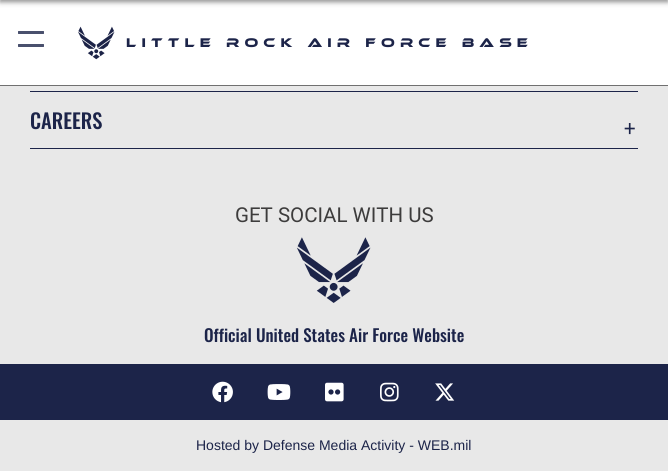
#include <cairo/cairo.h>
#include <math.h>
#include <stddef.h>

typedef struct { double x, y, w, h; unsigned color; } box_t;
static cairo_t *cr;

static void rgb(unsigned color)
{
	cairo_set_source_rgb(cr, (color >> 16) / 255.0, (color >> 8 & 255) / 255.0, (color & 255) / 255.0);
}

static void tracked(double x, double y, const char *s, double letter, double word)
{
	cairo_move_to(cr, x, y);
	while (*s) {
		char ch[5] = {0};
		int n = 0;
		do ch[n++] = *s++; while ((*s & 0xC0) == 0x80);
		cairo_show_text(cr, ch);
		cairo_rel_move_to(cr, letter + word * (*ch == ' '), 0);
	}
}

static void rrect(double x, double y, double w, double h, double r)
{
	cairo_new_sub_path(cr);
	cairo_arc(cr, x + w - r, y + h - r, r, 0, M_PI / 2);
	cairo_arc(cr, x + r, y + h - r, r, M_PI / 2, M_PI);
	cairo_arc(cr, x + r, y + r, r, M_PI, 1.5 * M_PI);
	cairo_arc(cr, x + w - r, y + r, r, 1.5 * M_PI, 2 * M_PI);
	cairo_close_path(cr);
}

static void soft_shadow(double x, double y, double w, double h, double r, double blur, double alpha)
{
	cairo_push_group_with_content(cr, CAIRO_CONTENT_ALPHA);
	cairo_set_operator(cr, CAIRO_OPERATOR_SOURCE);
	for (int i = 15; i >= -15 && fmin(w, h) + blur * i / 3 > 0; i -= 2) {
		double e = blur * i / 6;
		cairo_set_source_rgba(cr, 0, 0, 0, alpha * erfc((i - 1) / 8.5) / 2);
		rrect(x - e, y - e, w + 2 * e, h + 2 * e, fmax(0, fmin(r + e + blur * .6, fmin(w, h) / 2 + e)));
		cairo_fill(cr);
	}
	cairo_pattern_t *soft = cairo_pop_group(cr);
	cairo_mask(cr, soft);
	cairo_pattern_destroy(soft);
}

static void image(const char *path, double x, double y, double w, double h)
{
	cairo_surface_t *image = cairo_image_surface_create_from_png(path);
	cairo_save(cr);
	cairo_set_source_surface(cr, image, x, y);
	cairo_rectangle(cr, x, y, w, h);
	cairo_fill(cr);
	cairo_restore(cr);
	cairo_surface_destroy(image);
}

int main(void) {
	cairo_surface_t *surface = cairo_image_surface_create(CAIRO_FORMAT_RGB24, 668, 471);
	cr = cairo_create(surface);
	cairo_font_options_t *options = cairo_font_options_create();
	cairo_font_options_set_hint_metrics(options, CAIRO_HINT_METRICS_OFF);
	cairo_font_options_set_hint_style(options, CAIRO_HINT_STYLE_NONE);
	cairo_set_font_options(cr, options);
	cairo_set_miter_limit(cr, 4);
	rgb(0xffffff);
	cairo_paint(cr);
	rgb(0x191919);
	soft_shadow(0, -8, 668, 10, 0, 2.5, 0.5);
	rgb(0x707070);
	cairo_rectangle(cr, 0, 85, 668, 1);
	cairo_fill(cr);
	rgb(0x49506d);
	rrect(18, 31, 26, 3, 0.5);
	cairo_fill(cr);
	rrect(18, 44, 26, 3, 0.5);
	cairo_fill(cr);
	image("img/1.png", 78, 26, 37, 34);
	{
		static const box_t items[] = {
			{0, 86, 668, 385, 0xe8e8e8},
			{30, 91, 608, 1, 0x1c2449},
			{30, 148, 608, 1, 0x1c2449},
		};
		for (size_t i = 0; i < sizeof items / sizeof *items; i++) {
			rgb(items[i].color);
			cairo_rectangle(cr, items[i].x, items[i].y, items[i].w, items[i].h);
			cairo_fill(cr);
		}
	}
	image("img/2.png", 296, 237, 75, 66);
	cairo_rectangle(cr, 0, 364, 668, 56);
	cairo_fill(cr);
	image("img/3.png", 212, 381, 21, 22);
	image("img/4.png", 267, 384, 24, 16);
	image("img/5.png", 325, 382, 19, 20);
	image("img/6.png", 380, 382, 19, 20);
	image("img/7.png", 435, 383, 20, 18);
	cairo_select_font_face(cr, "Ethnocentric", CAIRO_FONT_SLANT_NORMAL, CAIRO_FONT_WEIGHT_NORMAL);
	cairo_set_font_size(cr, 13);
	tracked(126, 47, "Little Rock Air Force Base", 5.1, 0);
	cairo_select_font_face(cr, "Oswald Medium", CAIRO_FONT_SLANT_NORMAL, CAIRO_FONT_WEIGHT_NORMAL);
	cairo_set_font_size(cr, 20.5);
	cairo_move_to(cr, 30, 129);
	cairo_show_text(cr, "CAREERS");
	cairo_select_font_face(cr, "Oswald Light", CAIRO_FONT_SLANT_NORMAL, CAIRO_FONT_WEIGHT_NORMAL);
	cairo_set_font_size(cr, 30);
	cairo_move_to(cr, 624, 141);
	cairo_show_text(cr, "+");
	cairo_select_font_face(cr, "Roboto", CAIRO_FONT_SLANT_NORMAL, CAIRO_FONT_WEIGHT_NORMAL);
	cairo_set_font_size(cr, 20.5);
	rgb(0x3d3c3c);
	cairo_move_to(cr, 235, 222);
	cairo_show_text(cr, "GET SOCIAL WITH US");
	cairo_select_font_face(cr, "Oswald Medium", CAIRO_FONT_SLANT_NORMAL, CAIRO_FONT_WEIGHT_NORMAL);
	cairo_set_font_size(cr, 17);
	rgb(0x1c2449);
	cairo_move_to(cr, 204, 342);
	cairo_show_text(cr, "Official United States Air Force Website");
	cairo_select_font_face(cr, "Liberation Sans", CAIRO_FONT_SLANT_NORMAL, CAIRO_FONT_WEIGHT_NORMAL);
	cairo_set_font_size(cr, 14);
	cairo_move_to(cr, 196, 450);
	cairo_show_text(cr, "Hosted by Defense Media Activity - WEB.mil");
	cairo_surface_write_to_png(surface, "page.png");
	cairo_font_options_destroy(options);
	cairo_destroy(cr);
	cairo_surface_destroy(surface);
	return 0;
}
